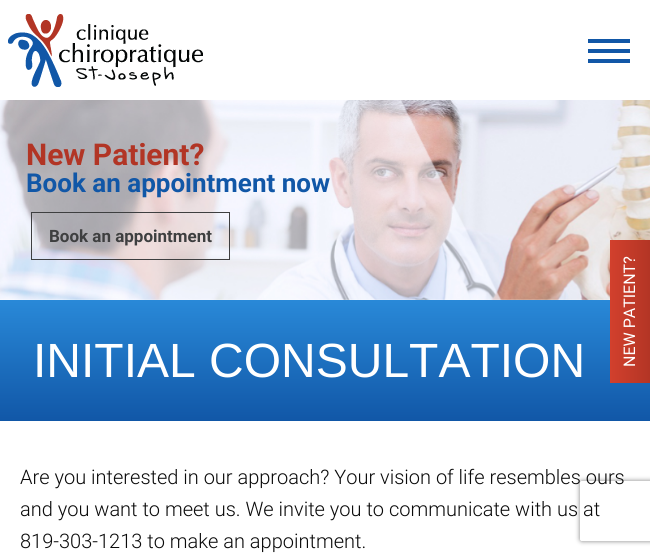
#include <cairo/cairo.h>
#include <math.h>
#include <stddef.h>

typedef struct { double x, y; const char *s; } line_t;
typedef struct { double x, y, w, h; unsigned color; } box_t;
static cairo_t *cr;

static void rgb(unsigned color)
{
	cairo_set_source_rgb(cr, (color >> 16) / 255.0, (color >> 8 & 255) / 255.0, (color & 255) / 255.0);
}

static void rrect(double x, double y, double w, double h, double r)
{
	cairo_new_sub_path(cr);
	cairo_arc(cr, x + w - r, y + h - r, r, 0, M_PI / 2);
	cairo_arc(cr, x + r, y + h - r, r, M_PI / 2, M_PI);
	cairo_arc(cr, x + r, y + r, r, M_PI, 1.5 * M_PI);
	cairo_arc(cr, x + w - r, y + r, r, 1.5 * M_PI, 2 * M_PI);
	cairo_close_path(cr);
}

static void soft_shadow(double x, double y, double w, double h, double r, double blur, double alpha)
{
	cairo_push_group_with_content(cr, CAIRO_CONTENT_ALPHA);
	cairo_set_operator(cr, CAIRO_OPERATOR_SOURCE);
	for (int i = 15; i >= -15 && fmin(w, h) + blur * i / 3 > 0; i -= 2) {
		double e = blur * i / 6;
		cairo_set_source_rgba(cr, 0, 0, 0, alpha * erfc((i - 1) / 8.5) / 2);
		rrect(x - e, y - e, w + 2 * e, h + 2 * e, fmax(0, fmin(r + e + blur * .6, fmin(w, h) / 2 + e)));
		cairo_fill(cr);
	}
	cairo_pattern_t *soft = cairo_pop_group(cr);
	cairo_mask(cr, soft);
	cairo_pattern_destroy(soft);
}

static void image(const char *path, double x, double y, double w, double h)
{
	cairo_surface_t *image = cairo_image_surface_create_from_png(path);
	cairo_save(cr);
	cairo_set_source_surface(cr, image, x, y);
	cairo_rectangle(cr, x, y, w, h);
	cairo_fill(cr);
	cairo_restore(cr);
	cairo_surface_destroy(image);
}

int main(void) {
	cairo_surface_t *surface = cairo_image_surface_create(CAIRO_FORMAT_RGB24, 650, 555);
	cr = cairo_create(surface);
	cairo_font_options_t *options = cairo_font_options_create();
	cairo_font_options_set_hint_metrics(options, CAIRO_HINT_METRICS_OFF);
	cairo_font_options_set_hint_style(options, CAIRO_HINT_STYLE_NONE);
	cairo_set_font_options(cr, options);
	cairo_set_miter_limit(cr, 4);
	cairo_pattern_t *gradient;
	rgb(0xffffff);
	cairo_paint(cr);
	image("img/1.png", 8, 14, 195, 73);
	{
		static const box_t items[] = {
			{588, 39, 42, 4, 0x1157a7},
			{588, 49, 42, 4, 0x1157a7},
			{588, 59, 42, 4, 0x1157a7},
		};
		for (size_t i = 0; i < sizeof items / sizeof *items; i++) {
			rgb(items[i].color);
			cairo_rectangle(cr, items[i].x, items[i].y, items[i].w, items[i].h);
			cairo_fill(cr);
		}
	}
	image("img/2.png", 0, 100, 650, 200);
	cairo_rectangle(cr, 31.5, 212.5, 198, 47);
	rgb(0x3e3f40);
	cairo_set_line_width(cr, 1);
	cairo_stroke(cr);
	gradient = cairo_pattern_create_linear(325, 300, 325, 421);
	cairo_pattern_add_color_stop_rgba(gradient, 0, 0.086, 0.435, 0.827, 1);
	cairo_pattern_add_color_stop_rgba(gradient, 0, 0.125, 0.486, 0.792, 1);
	cairo_pattern_add_color_stop_rgba(gradient, 0, 0.161, 0.537, 0.847, 1);
	cairo_pattern_add_color_stop_rgba(gradient, 1, 0.067, 0.341, 0.655, 1);
	cairo_set_source(cr, gradient);
	cairo_pattern_destroy(gradient);
	cairo_rectangle(cr, 0, 300, 650, 121);
	cairo_fill(cr);
	gradient = cairo_pattern_create_linear(610, 311, 650, 311);
	cairo_pattern_add_color_stop_rgba(gradient, 0, 0.824, 0.251, 0.176, 1);
	cairo_pattern_add_color_stop_rgba(gradient, 1, 0.702, 0.208, 0.145, 1);
	cairo_set_source(cr, gradient);
	cairo_pattern_destroy(gradient);
	cairo_rectangle(cr, 610, 240, 40, 143);
	cairo_fill(cr);
	cairo_save(cr);
	cairo_set_fill_rule(cr, CAIRO_FILL_RULE_EVEN_ODD);
	cairo_new_path(cr);
	cairo_move_to(cr, 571, 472);
	cairo_line_to(cr, 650, 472);
	cairo_line_to(cr, 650, 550);
	cairo_line_to(cr, 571, 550);
	cairo_close_path(cr);
	cairo_move_to(cr, 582, 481);
	cairo_line_to(cr, 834, 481);
	cairo_curve_to(cr, 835, 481, 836, 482, 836, 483);
	cairo_line_to(cr, 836, 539);
	cairo_curve_to(cr, 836, 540, 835, 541, 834, 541);
	cairo_line_to(cr, 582, 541);
	cairo_curve_to(cr, 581, 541, 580, 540, 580, 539);
	cairo_line_to(cr, 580, 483);
	cairo_curve_to(cr, 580, 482, 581, 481, 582, 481);
	cairo_close_path(cr);
	cairo_clip(cr);
	rgb(0x808080);
	soft_shadow(580, 481, 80, 60, 2, 2.5, 1);
	cairo_restore(cr);
	cairo_select_font_face(cr, "Roboto", CAIRO_FONT_SLANT_NORMAL, CAIRO_FONT_WEIGHT_BOLD);
	cairo_set_font_size(cr, 30);
	rgb(0xb23525);
	cairo_move_to(cr, 26, 165);
	cairo_show_text(cr, "New Patient?");
	cairo_set_font_size(cr, 26);
	rgb(0x1157a7);
	cairo_move_to(cr, 26, 192);
	cairo_show_text(cr, "Book an appointment now");
	cairo_set_font_size(cr, 17);
	rgb(0x3e3f40);
	cairo_move_to(cr, 49, 242);
	cairo_show_text(cr, "Book an appointment");
	cairo_select_font_face(cr, "Liberation Sans", CAIRO_FONT_SLANT_NORMAL, CAIRO_FONT_WEIGHT_NORMAL);
	cairo_set_font_size(cr, 48);
	rgb(0xffffff);
	cairo_move_to(cr, 33, 377);
	cairo_show_text(cr, "INITIAL CONSULTATION");
	cairo_select_font_face(cr, "Roboto Light", CAIRO_FONT_SLANT_NORMAL, CAIRO_FONT_WEIGHT_NORMAL);
	cairo_set_font_size(cr, 20);
	rgb(0x0a0a0a);
	{
		static const line_t items[] = {
			{20, 484, "Are you interested in our approach? Your vision of life resembles ours"},
			{20, 516, "and you want to meet us. We invite you to communicate with us at"},
			{20, 548, "819-303-1213 to make an appointment."},
		};
		for (size_t i = 0; i < sizeof items / sizeof *items; i++) {
			cairo_move_to(cr, items[i].x, items[i].y);
			cairo_show_text(cr, items[i].s);
		}
	}
	cairo_select_font_face(cr, "Roboto", CAIRO_FONT_SLANT_NORMAL, CAIRO_FONT_WEIGHT_NORMAL);
	cairo_set_font_size(cr, 16);
	rgb(0xffffff);
	cairo_save(cr);
	cairo_translate(cr, 635, 367);
	cairo_rotate(cr, -90 * M_PI / 180);
	cairo_move_to(cr, 0, 0);
	cairo_show_text(cr, "NEW PATIENT?");
	cairo_restore(cr);
	cairo_surface_write_to_png(surface, "page.png");
	cairo_font_options_destroy(options);
	cairo_destroy(cr);
	cairo_surface_destroy(surface);
	return 0;
}
